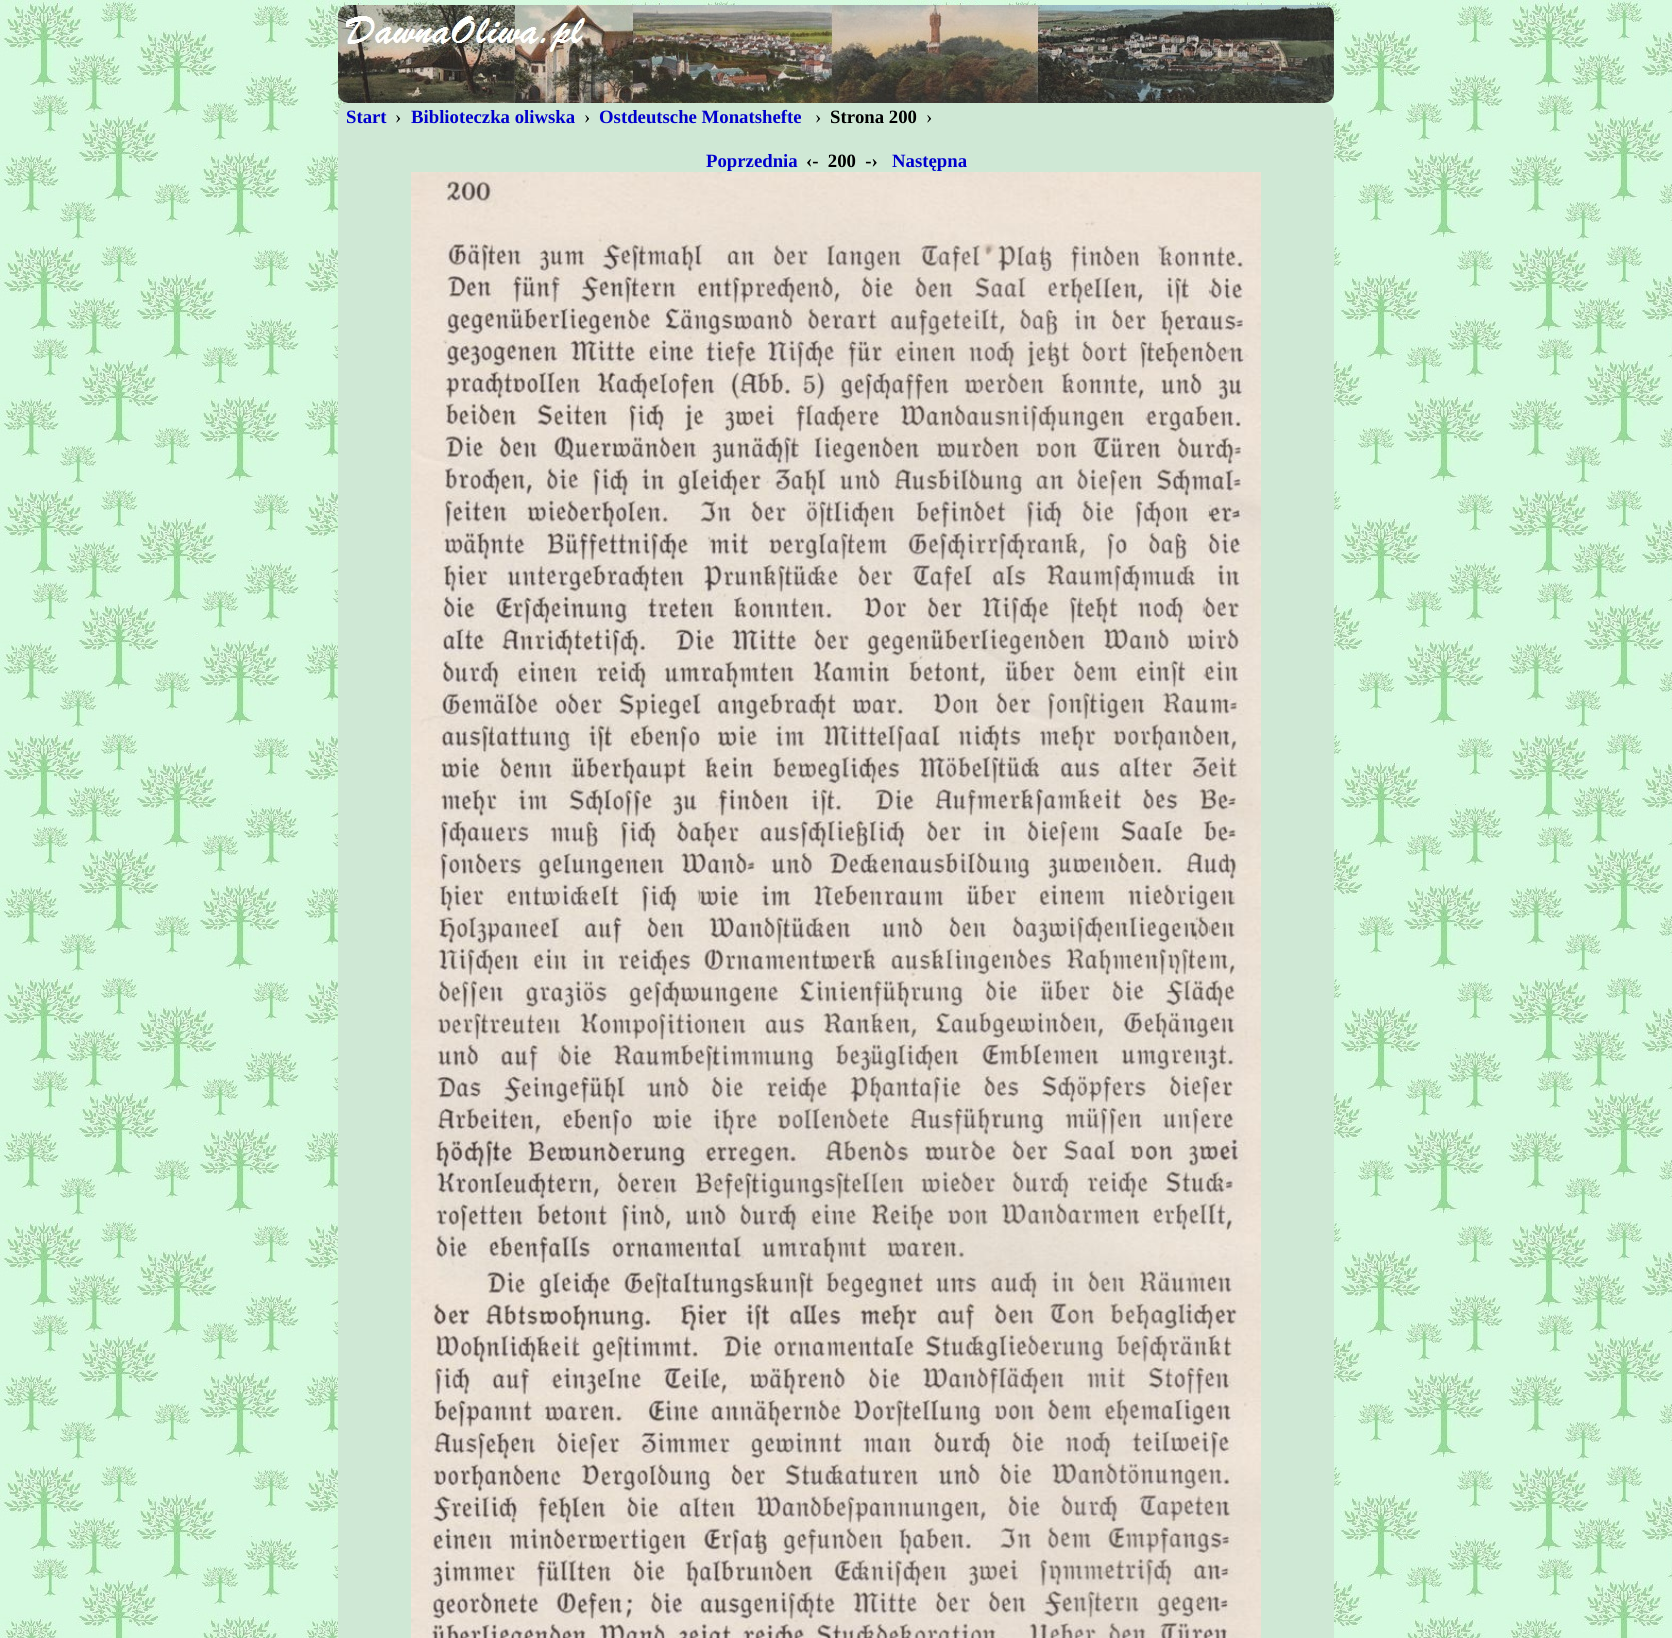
#include <cairo/cairo.h>
#include <math.h>
#include <stddef.h>

static cairo_t *cr;

static void rgb(unsigned color)
{
	cairo_set_source_rgb(cr, (color >> 16) / 255.0, (color >> 8 & 255) / 255.0, (color & 255) / 255.0);
}

static void image(const char *path, double x, double y, double w, double h)
{
	cairo_surface_t *image = cairo_image_surface_create_from_png(path);
	cairo_save(cr);
	cairo_set_source_surface(cr, image, x, y);
	cairo_rectangle(cr, x, y, w, h);
	cairo_fill(cr);
	cairo_restore(cr);
	cairo_surface_destroy(image);
}

int main(void) {
	cairo_surface_t *surface = cairo_image_surface_create(CAIRO_FORMAT_RGB24, 1672, 1638);
	cr = cairo_create(surface);
	cairo_font_options_t *options = cairo_font_options_create();
	cairo_font_options_set_hint_metrics(options, CAIRO_HINT_METRICS_OFF);
	cairo_font_options_set_hint_style(options, CAIRO_HINT_STYLE_NONE);
	cairo_set_font_options(cr, options);
	cairo_set_miter_limit(cr, 4);
	rgb(0xffffff);
	cairo_paint(cr);
	image("img/1.png", 0, 0, 1672, 1638);
	image("img/2.png", 338, 5, 996, 98);
	image("img/3.png", 338, 103, 996, 1535);
	image("img/4.png", 411, 172, 850, 1466);
	cairo_select_font_face(cr, "Liberation Serif", CAIRO_FONT_SLANT_NORMAL, CAIRO_FONT_WEIGHT_BOLD);
	cairo_set_font_size(cr, 18.75);
	rgb(0x0000cd);
	cairo_move_to(cr, 346, 123);
	cairo_show_text(cr, "Start");
	cairo_select_font_face(cr, "Liberation Serif", CAIRO_FONT_SLANT_NORMAL, CAIRO_FONT_WEIGHT_NORMAL);
	rgb(0x000000);
	cairo_move_to(cr, 395, 123);
	cairo_show_text(cr, "›");
	cairo_select_font_face(cr, "Liberation Serif", CAIRO_FONT_SLANT_NORMAL, CAIRO_FONT_WEIGHT_BOLD);
	rgb(0x0000cd);
	cairo_move_to(cr, 411, 123);
	cairo_show_text(cr, "Biblioteczka oliwska");
	cairo_select_font_face(cr, "Liberation Serif", CAIRO_FONT_SLANT_NORMAL, CAIRO_FONT_WEIGHT_NORMAL);
	rgb(0x000000);
	cairo_move_to(cr, 584, 123);
	cairo_show_text(cr, "›");
	cairo_select_font_face(cr, "Liberation Serif", CAIRO_FONT_SLANT_NORMAL, CAIRO_FONT_WEIGHT_BOLD);
	rgb(0x0000cd);
	cairo_move_to(cr, 599, 123);
	cairo_show_text(cr, "Ostdeutsche Monatshefte");
	cairo_select_font_face(cr, "Liberation Serif", CAIRO_FONT_SLANT_NORMAL, CAIRO_FONT_WEIGHT_NORMAL);
	rgb(0x000000);
	cairo_move_to(cr, 815, 123);
	cairo_show_text(cr, "›");
	cairo_select_font_face(cr, "Liberation Serif", CAIRO_FONT_SLANT_NORMAL, CAIRO_FONT_WEIGHT_BOLD);
	cairo_move_to(cr, 830, 123);
	cairo_show_text(cr, "Strona 200");
	cairo_select_font_face(cr, "Liberation Serif", CAIRO_FONT_SLANT_NORMAL, CAIRO_FONT_WEIGHT_NORMAL);
	cairo_move_to(cr, 926, 123);
	cairo_show_text(cr, "›");
	cairo_select_font_face(cr, "Liberation Serif", CAIRO_FONT_SLANT_NORMAL, CAIRO_FONT_WEIGHT_BOLD);
	rgb(0x0000cd);
	cairo_move_to(cr, 706, 167);
	cairo_show_text(cr, "Poprzednia");
	rgb(0x000000);
	cairo_move_to(cr, 806, 167);
	cairo_show_text(cr, "‹-  200  -›");
	rgb(0x0000cd);
	cairo_move_to(cr, 892, 167);
	cairo_show_text(cr, "Następna");
	cairo_surface_write_to_png(surface, "page.png");
	cairo_font_options_destroy(options);
	cairo_destroy(cr);
	cairo_surface_destroy(surface);
	return 0;
}
